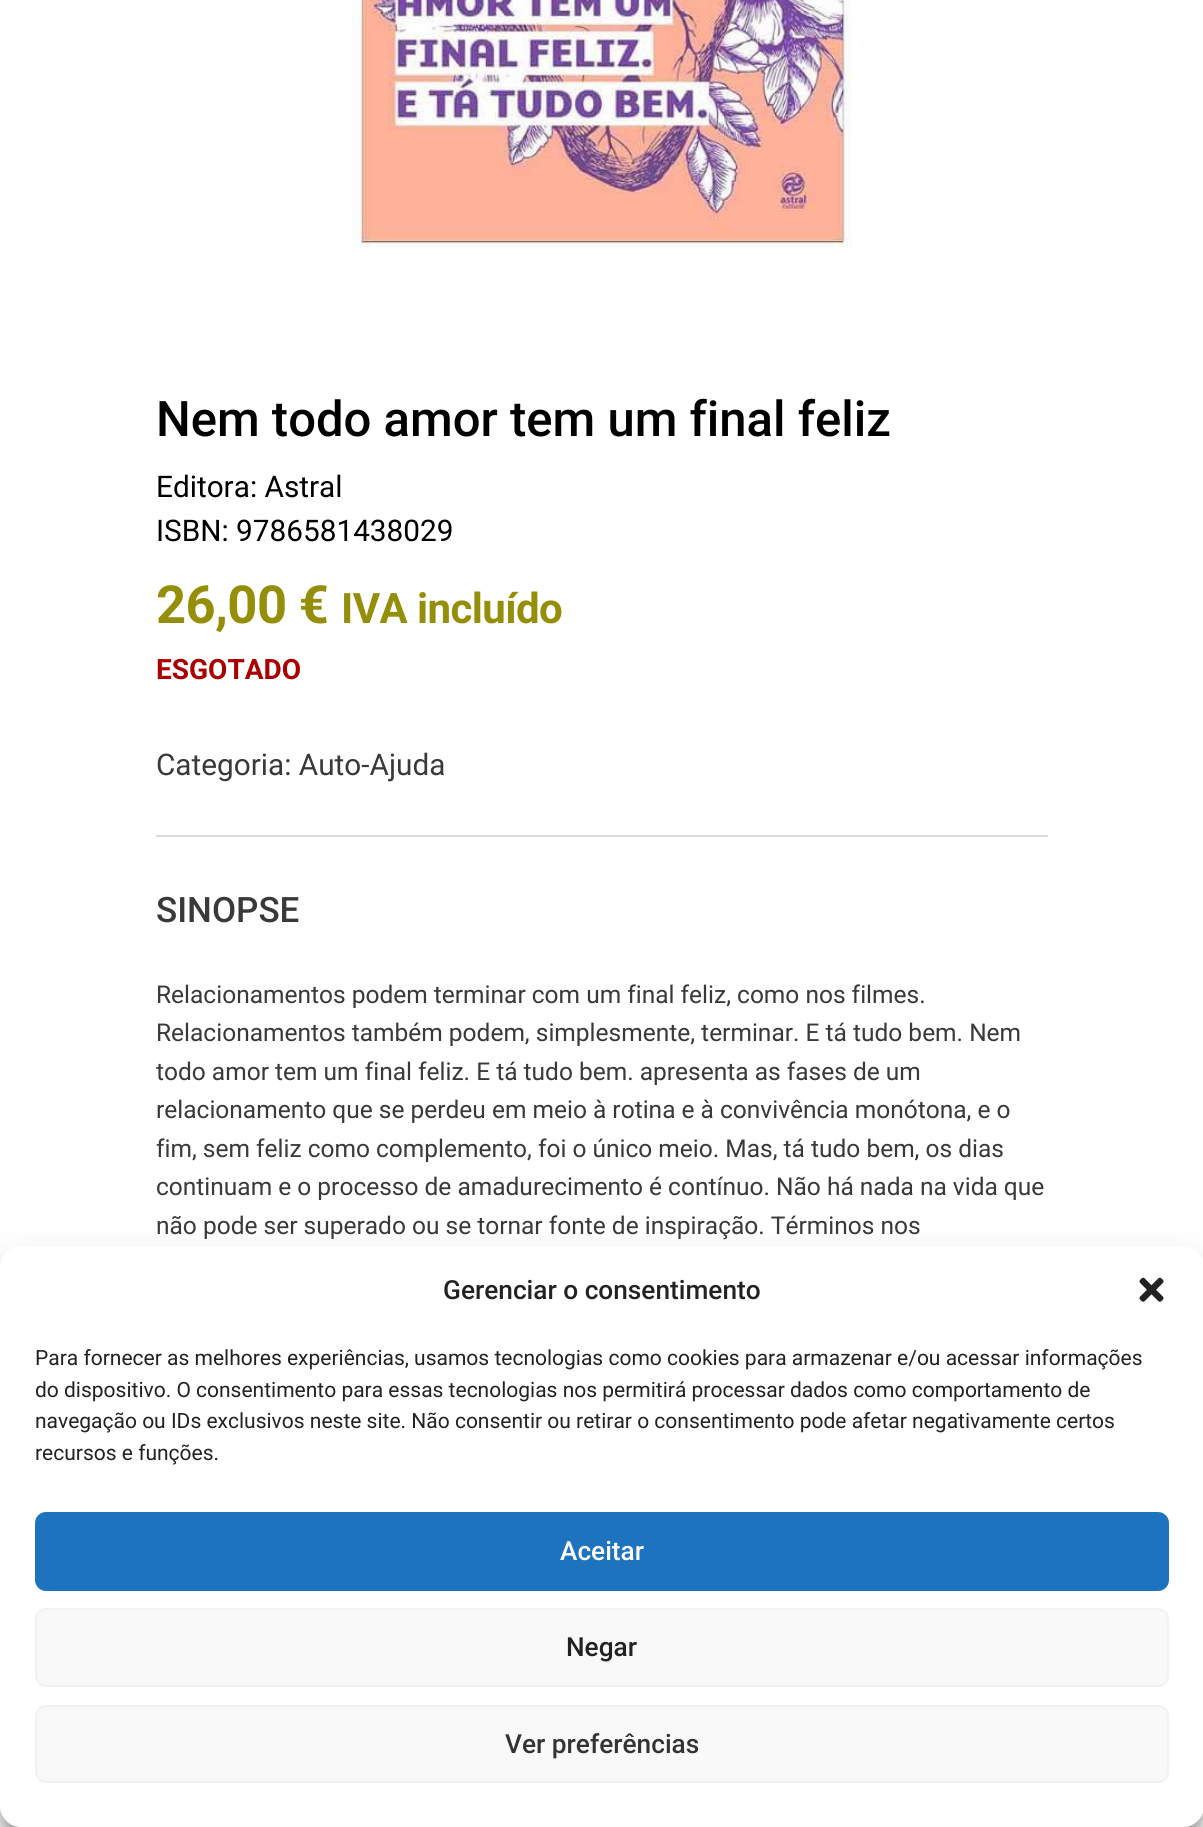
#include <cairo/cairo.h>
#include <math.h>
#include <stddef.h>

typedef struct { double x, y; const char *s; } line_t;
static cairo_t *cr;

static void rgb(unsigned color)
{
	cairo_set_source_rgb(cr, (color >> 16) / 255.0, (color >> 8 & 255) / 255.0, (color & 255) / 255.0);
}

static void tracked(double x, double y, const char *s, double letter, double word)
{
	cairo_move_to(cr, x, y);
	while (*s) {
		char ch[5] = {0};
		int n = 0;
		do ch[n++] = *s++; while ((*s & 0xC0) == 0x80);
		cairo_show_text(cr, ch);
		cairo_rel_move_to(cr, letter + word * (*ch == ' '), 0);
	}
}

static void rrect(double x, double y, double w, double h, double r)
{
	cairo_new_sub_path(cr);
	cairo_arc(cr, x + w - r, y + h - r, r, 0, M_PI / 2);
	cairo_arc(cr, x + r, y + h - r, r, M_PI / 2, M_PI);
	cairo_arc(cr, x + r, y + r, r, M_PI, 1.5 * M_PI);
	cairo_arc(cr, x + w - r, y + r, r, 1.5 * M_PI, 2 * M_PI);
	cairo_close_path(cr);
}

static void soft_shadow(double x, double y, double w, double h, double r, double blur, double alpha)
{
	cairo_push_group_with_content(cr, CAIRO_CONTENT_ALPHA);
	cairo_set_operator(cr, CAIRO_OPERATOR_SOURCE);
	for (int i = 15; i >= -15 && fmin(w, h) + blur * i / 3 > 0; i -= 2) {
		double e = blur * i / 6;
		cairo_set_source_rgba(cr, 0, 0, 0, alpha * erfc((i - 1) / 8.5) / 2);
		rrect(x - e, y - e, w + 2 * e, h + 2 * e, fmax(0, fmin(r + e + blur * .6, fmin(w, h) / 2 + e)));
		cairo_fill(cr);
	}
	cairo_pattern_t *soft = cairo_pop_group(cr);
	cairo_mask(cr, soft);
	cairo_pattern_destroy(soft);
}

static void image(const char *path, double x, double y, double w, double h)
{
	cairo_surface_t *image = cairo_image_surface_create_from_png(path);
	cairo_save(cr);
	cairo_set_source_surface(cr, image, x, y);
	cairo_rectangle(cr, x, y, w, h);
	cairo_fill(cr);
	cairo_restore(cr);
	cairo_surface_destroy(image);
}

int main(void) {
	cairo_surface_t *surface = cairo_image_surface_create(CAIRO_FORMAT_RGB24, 1203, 1827);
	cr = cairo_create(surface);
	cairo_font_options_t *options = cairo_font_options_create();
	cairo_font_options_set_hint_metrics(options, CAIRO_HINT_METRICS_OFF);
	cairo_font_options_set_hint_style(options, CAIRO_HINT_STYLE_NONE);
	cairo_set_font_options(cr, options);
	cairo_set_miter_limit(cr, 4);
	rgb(0xffffff);
	cairo_paint(cr);
	image("img/1.png", 352, 0, 500, 247);
	rgb(0xdadada);
	cairo_rectangle(cr, 156, 835, 892, 2);
	cairo_fill(cr);
	rgb(0x000000);
	soft_shadow(0, 1257, 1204, 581, 21, 5, 0.23);
	soft_shadow(0, 1264, 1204, 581, 21, 17.5, 0.19);
	rgb(0xffffff);
	rrect(0, 1246, 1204, 581, 21);
	cairo_fill(cr);
	image("img/2.png", 1139, 1277, 25, 25);
	rgb(0x1e73be);
	rrect(36, 1513, 1132, 77, 10);
	cairo_fill_preserve(cr);
	cairo_stroke(cr);
	rgb(0xf9f9f9);
	rrect(36, 1609, 1132, 77, 10);
	cairo_fill_preserve(cr);
	rgb(0xf2f2f2);
	cairo_stroke(cr);
	rgb(0xf9f9f9);
	rrect(36, 1706, 1132, 76, 10);
	cairo_fill_preserve(cr);
	rgb(0xf2f2f2);
	cairo_stroke(cr);
	cairo_select_font_face(cr, "Roboto Medium", CAIRO_FONT_SLANT_NORMAL, CAIRO_FONT_WEIGHT_NORMAL);
	cairo_set_font_size(cr, 49);
	rgb(0x000000);
	cairo_move_to(cr, 156, 436);
	cairo_show_text(cr, "Nem todo amor tem um final feliz");
	cairo_select_font_face(cr, "Roboto", CAIRO_FONT_SLANT_NORMAL, CAIRO_FONT_WEIGHT_NORMAL);
	cairo_set_font_size(cr, 29.75);
	cairo_move_to(cr, 156, 497);
	cairo_show_text(cr, "Editora: Astral");
	cairo_move_to(cr, 156, 541);
	cairo_show_text(cr, "ISBN: 9786581438029");
	cairo_select_font_face(cr, "Roboto", CAIRO_FONT_SLANT_NORMAL, CAIRO_FONT_WEIGHT_BOLD);
	cairo_set_font_size(cr, 52.5);
	rgb(0x958e09);
	tracked(156, 623, "26,00 €", -0.6, 0);
	cairo_set_font_size(cr, 42);
	tracked(341, 623, "IVA incluído", -0.6, 0);
	cairo_set_font_size(cr, 28);
	rgb(0xaa0000);
	cairo_move_to(cr, 156, 679);
	cairo_show_text(cr, "ESGOTADO");
	cairo_select_font_face(cr, "Roboto", CAIRO_FONT_SLANT_NORMAL, CAIRO_FONT_WEIGHT_NORMAL);
	cairo_set_font_size(cr, 29.75);
	rgb(0x393939);
	cairo_move_to(cr, 156, 775);
	cairo_show_text(cr, "Categoria: Auto-Ajuda");
	cairo_select_font_face(cr, "Roboto Medium", CAIRO_FONT_SLANT_NORMAL, CAIRO_FONT_WEIGHT_NORMAL);
	cairo_set_font_size(cr, 35);
	cairo_move_to(cr, 156, 922);
	cairo_show_text(cr, "SINOPSE");
	cairo_select_font_face(cr, "Roboto", CAIRO_FONT_SLANT_NORMAL, CAIRO_FONT_WEIGHT_NORMAL);
	cairo_set_font_size(cr, 24.5);
	{
		static const line_t items[] = {
			{156, 1003, "Relacionamentos podem terminar com um final feliz, como nos filmes."},
			{156, 1041, "Relacionamentos também podem, simplesmente, terminar. E tá tudo bem. Nem"},
			{156, 1080, "todo amor tem um final feliz. E tá tudo bem. apresenta as fases de um"},
			{156, 1118, "relacionamento que se perdeu em meio à rotina e à convivência monótona, e o"},
			{156, 1157, "fim, sem feliz como complemento, foi o único meio. Mas, tá tudo bem, os dias"},
			{156, 1195, "continuam e o processo de amadurecimento é contínuo. Não há nada na vida que"},
			{156, 1234, "não pode ser superado ou se tornar fonte de inspiração. Términos nos"},
		};
		for (size_t i = 0; i < sizeof items / sizeof *items; i++) {
			cairo_move_to(cr, items[i].x, items[i].y);
			cairo_show_text(cr, items[i].s);
		}
	}
	cairo_select_font_face(cr, "Roboto Medium", CAIRO_FONT_SLANT_NORMAL, CAIRO_FONT_WEIGHT_NORMAL);
	cairo_set_font_size(cr, 26.25);
	rgb(0x222222);
	cairo_move_to(cr, 443, 1299);
	cairo_show_text(cr, "Gerenciar o consentimento");
	cairo_select_font_face(cr, "Roboto", CAIRO_FONT_SLANT_NORMAL, CAIRO_FONT_WEIGHT_NORMAL);
	cairo_set_font_size(cr, 21);
	{
		static const line_t items[] = {
			{35, 1365, "Para fornecer as melhores experiências, usamos tecnologias como cookies para armazenar e/ou acessar informações"},
			{35, 1397, "do dispositivo. O consentimento para essas tecnologias nos permitirá processar dados como comportamento de"},
			{35, 1428, "navegação ou IDs exclusivos neste site. Não consentir ou retirar o consentimento pode afetar negativamente certos"},
			{35, 1460, "recursos e funções."},
		};
		for (size_t i = 0; i < sizeof items / sizeof *items; i++) {
			cairo_move_to(cr, items[i].x, items[i].y);
			cairo_show_text(cr, items[i].s);
		}
	}
	cairo_select_font_face(cr, "Roboto Medium", CAIRO_FONT_SLANT_NORMAL, CAIRO_FONT_WEIGHT_NORMAL);
	cairo_set_font_size(cr, 26.25);
	rgb(0xffffff);
	cairo_move_to(cr, 560, 1560);
	cairo_show_text(cr, "Aceitar");
	rgb(0x222222);
	cairo_move_to(cr, 566, 1656);
	cairo_show_text(cr, "Negar");
	rgb(0x333333);
	cairo_move_to(cr, 505, 1753);
	cairo_show_text(cr, "Ver preferências");
	cairo_surface_write_to_png(surface, "page.png");
	cairo_font_options_destroy(options);
	cairo_destroy(cr);
	cairo_surface_destroy(surface);
	return 0;
}
